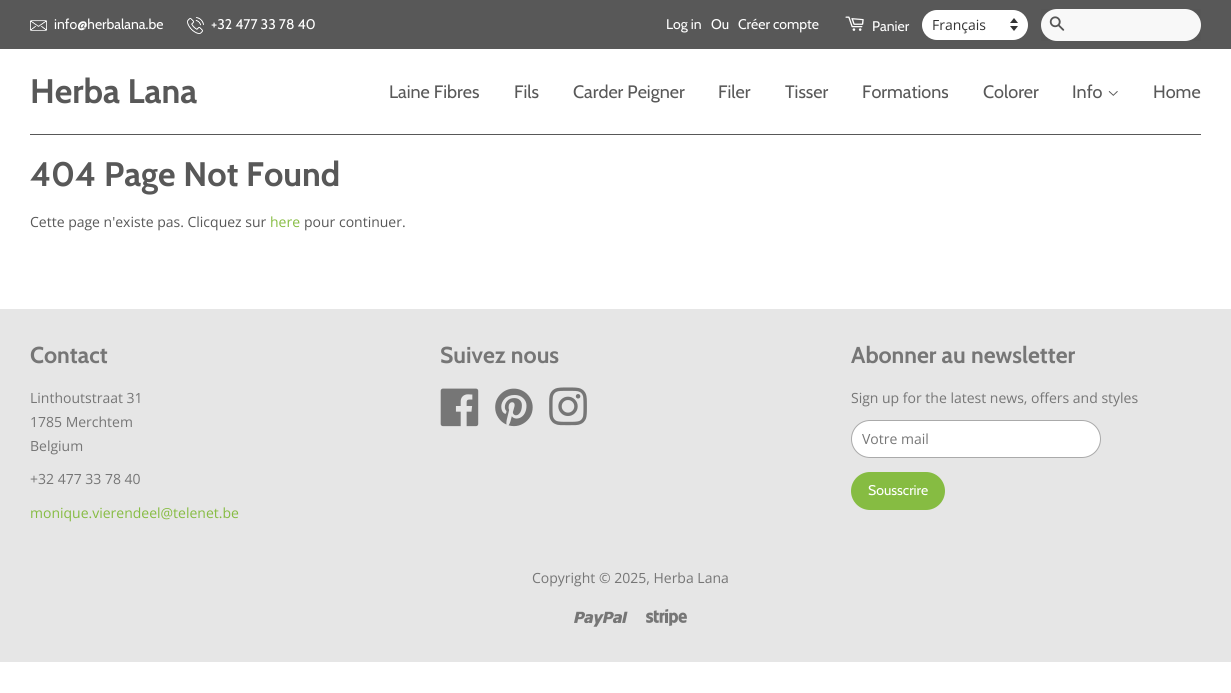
#include <cairo/cairo.h>
#include <math.h>
#include <stddef.h>

typedef struct { double x, y; const char *s; } line_t;
static cairo_t *cr;

static void rgb(unsigned color)
{
	cairo_set_source_rgb(cr, (color >> 16) / 255.0, (color >> 8 & 255) / 255.0, (color & 255) / 255.0);
}

static void rrect(double x, double y, double w, double h, double r)
{
	cairo_new_sub_path(cr);
	cairo_arc(cr, x + w - r, y + h - r, r, 0, M_PI / 2);
	cairo_arc(cr, x + r, y + h - r, r, M_PI / 2, M_PI);
	cairo_arc(cr, x + r, y + r, r, M_PI, 1.5 * M_PI);
	cairo_arc(cr, x + w - r, y + r, r, 1.5 * M_PI, 2 * M_PI);
	cairo_close_path(cr);
}

static void image(const char *path, double x, double y, double w, double h)
{
	cairo_surface_t *image = cairo_image_surface_create_from_png(path);
	cairo_save(cr);
	cairo_set_source_surface(cr, image, x, y);
	cairo_rectangle(cr, x, y, w, h);
	cairo_fill(cr);
	cairo_restore(cr);
	cairo_surface_destroy(image);
}

int main(void) {
	cairo_surface_t *surface = cairo_image_surface_create(CAIRO_FORMAT_RGB24, 1231, 693);
	cr = cairo_create(surface);
	cairo_font_options_t *options = cairo_font_options_create();
	cairo_font_options_set_hint_metrics(options, CAIRO_HINT_METRICS_OFF);
	cairo_font_options_set_hint_style(options, CAIRO_HINT_STYLE_NONE);
	cairo_set_font_options(cr, options);
	cairo_set_miter_limit(cr, 4);
	rgb(0xffffff);
	cairo_paint(cr);
	rgb(0x585858);
	cairo_rectangle(cr, 0, 0, 1231, 49);
	cairo_fill(cr);
	image("img/1.png", 30, 20, 17, 11);
	image("img/2.png", 187, 17, 17, 17);
	image("img/3.png", 845, 16, 19, 15);
	rgb(0xffffff);
	rrect(922, 10, 106, 30, 15);
	cairo_fill(cr);
	image("img/4.png", 1010, 18, 8, 13);
	rrect(1041, 9, 160, 32, 16);
	cairo_fill(cr);
	cairo_set_source_rgba(cr, 0, 0, 0, 0.03);
	cairo_rectangle(cr, 1041, 9, 160, 32);
	cairo_fill(cr);
	image("img/5.png", 1049, 16, 16, 15);
	rgb(0x585858);
	cairo_rectangle(cr, 30, 134, 1171, 1);
	cairo_fill(cr);
	image("img/6.png", 1108, 91, 10, 5);
	rgb(0xe6e6e6);
	cairo_rectangle(cr, 0, 309, 1231, 353);
	cairo_fill(cr);
	image("img/7.png", 440, 388, 39, 39);
	image("img/8.png", 495, 388, 38, 39);
	image("img/9.png", 549, 387, 38, 39);
	rgb(0xffffff);
	rrect(851.5, 420.5, 249, 37, 18.5);
	cairo_fill_preserve(cr);
	rgb(0xaaaaaa);
	cairo_set_line_width(cr, 1);
	cairo_stroke(cr);
	rgb(0x86bc42);
	rrect(851, 472, 94, 38, 19);
	cairo_fill(cr);
	image("img/10.png", 574, 611, 54, 16);
	image("img/11.png", 646, 609, 41, 17);
	cairo_select_font_face(cr, "Cabin", CAIRO_FONT_SLANT_NORMAL, CAIRO_FONT_WEIGHT_NORMAL);
	cairo_set_font_size(cr, 14);
	rgb(0xffffff);
	{
		static const line_t items[] = {
			{54, 29, "info@herbalana.be"},
			{211, 29, "+32 477 33 78 40"},
			{666, 29, "Log in"},
			{711, 29, "Ou"},
			{738, 29, "Créer compte"},
			{872, 31, "Panier"},
		};
		for (size_t i = 0; i < sizeof items / sizeof *items; i++) {
			cairo_move_to(cr, items[i].x, items[i].y);
			cairo_show_text(cr, items[i].s);
		}
	}
	cairo_select_font_face(cr, "Open Sans", CAIRO_FONT_SLANT_NORMAL, CAIRO_FONT_WEIGHT_NORMAL);
	rgb(0x333333);
	cairo_move_to(cr, 932, 30);
	cairo_show_text(cr, "Français");
	cairo_select_font_face(cr, "Cabin", CAIRO_FONT_SLANT_NORMAL, CAIRO_FONT_WEIGHT_BOLD);
	cairo_set_font_size(cr, 34);
	rgb(0x585858);
	cairo_move_to(cr, 30, 103);
	cairo_show_text(cr, "Herba Lana");
	cairo_select_font_face(cr, "Cabin", CAIRO_FONT_SLANT_NORMAL, CAIRO_FONT_WEIGHT_NORMAL);
	cairo_set_font_size(cr, 18);
	{
		static const line_t items[] = {
			{389, 98, "Laine Fibres"},
			{514, 98, "Fils"},
			{573, 98, "Carder Peigner"},
			{718, 98, "Filer"},
			{785, 98, "Tisser"},
			{862, 98, "Formations"},
			{983, 98, "Colorer"},
			{1072, 98, "Info"},
			{1153, 98, "Home"},
		};
		for (size_t i = 0; i < sizeof items / sizeof *items; i++) {
			cairo_move_to(cr, items[i].x, items[i].y);
			cairo_show_text(cr, items[i].s);
		}
	}
	cairo_select_font_face(cr, "Cabin", CAIRO_FONT_SLANT_NORMAL, CAIRO_FONT_WEIGHT_BOLD);
	cairo_set_font_size(cr, 34);
	cairo_move_to(cr, 30, 186);
	cairo_show_text(cr, "404 Page Not Found");
	cairo_select_font_face(cr, "Open Sans", CAIRO_FONT_SLANT_NORMAL, CAIRO_FONT_WEIGHT_NORMAL);
	cairo_set_font_size(cr, 14);
	cairo_move_to(cr, 30, 227);
	cairo_show_text(cr, "Cette page n'existe pas. Clicquez sur");
	rgb(0x86bc42);
	cairo_move_to(cr, 270, 227);
	cairo_show_text(cr, "here");
	rgb(0x585858);
	cairo_move_to(cr, 304, 227);
	cairo_show_text(cr, "pour continuer.");
	cairo_select_font_face(cr, "Cabin", CAIRO_FONT_SLANT_NORMAL, CAIRO_FONT_WEIGHT_BOLD);
	cairo_set_font_size(cr, 23);
	rgb(0x767676);
	cairo_move_to(cr, 30, 363);
	cairo_show_text(cr, "Contact");
	cairo_select_font_face(cr, "Open Sans", CAIRO_FONT_SLANT_NORMAL, CAIRO_FONT_WEIGHT_NORMAL);
	cairo_set_font_size(cr, 14);
	{
		static const line_t items[] = {
			{30, 403, "Linthoutstraat 31"},
			{30, 427, "1785 Merchtem"},
			{30, 451, "Belgium"},
			{30, 484, "+32 477 33 78 40"},
		};
		for (size_t i = 0; i < sizeof items / sizeof *items; i++) {
			cairo_move_to(cr, items[i].x, items[i].y);
			cairo_show_text(cr, items[i].s);
		}
	}
	rgb(0x86bc42);
	cairo_move_to(cr, 30, 518);
	cairo_show_text(cr, "monique.vierendeel@telenet.be");
	cairo_select_font_face(cr, "Cabin", CAIRO_FONT_SLANT_NORMAL, CAIRO_FONT_WEIGHT_BOLD);
	cairo_set_font_size(cr, 23);
	rgb(0x767676);
	cairo_move_to(cr, 440, 363);
	cairo_show_text(cr, "Suivez nous");
	cairo_move_to(cr, 851, 363);
	cairo_show_text(cr, "Abonner au newsletter");
	cairo_select_font_face(cr, "Open Sans", CAIRO_FONT_SLANT_NORMAL, CAIRO_FONT_WEIGHT_NORMAL);
	cairo_set_font_size(cr, 14);
	cairo_move_to(cr, 851, 403);
	cairo_show_text(cr, "Sign up for the latest news, offers and styles");
	cairo_move_to(cr, 862, 444);
	cairo_show_text(cr, "Votre mail");
	cairo_select_font_face(cr, "Cabin", CAIRO_FONT_SLANT_NORMAL, CAIRO_FONT_WEIGHT_NORMAL);
	rgb(0xffffff);
	cairo_move_to(cr, 868, 495);
	cairo_show_text(cr, "Sousscrire");
	cairo_select_font_face(cr, "Open Sans", CAIRO_FONT_SLANT_NORMAL, CAIRO_FONT_WEIGHT_NORMAL);
	rgb(0x767676);
	cairo_move_to(cr, 532, 583);
	cairo_show_text(cr, "Copyright © 2025, Herba Lana");
	cairo_surface_write_to_png(surface, "page.png");
	cairo_font_options_destroy(options);
	cairo_destroy(cr);
	cairo_surface_destroy(surface);
	return 0;
}
